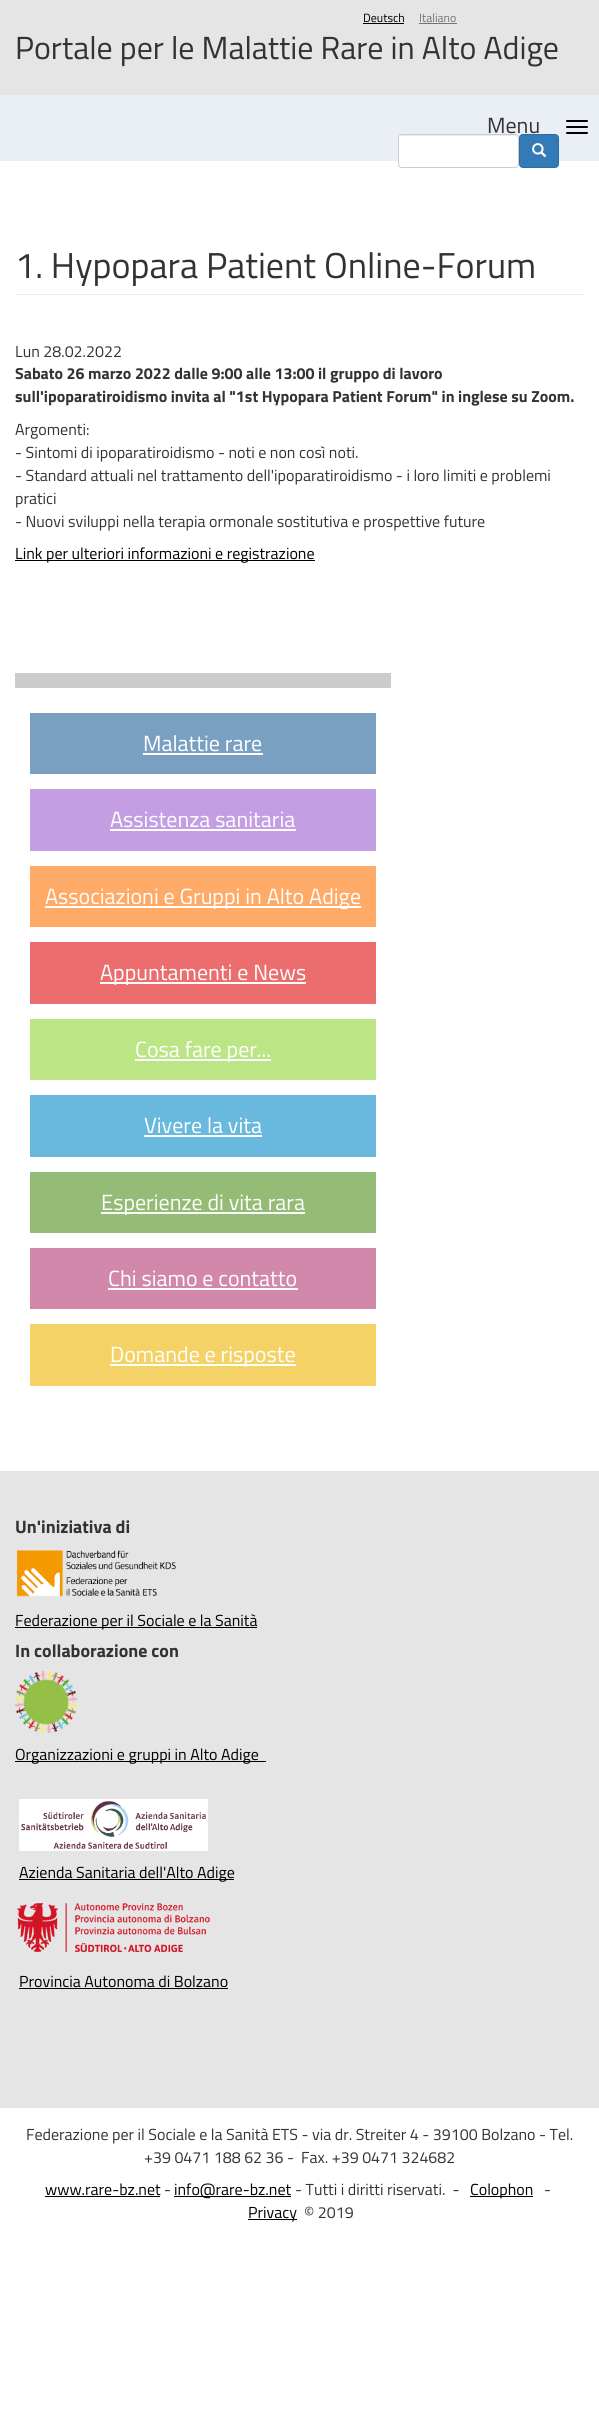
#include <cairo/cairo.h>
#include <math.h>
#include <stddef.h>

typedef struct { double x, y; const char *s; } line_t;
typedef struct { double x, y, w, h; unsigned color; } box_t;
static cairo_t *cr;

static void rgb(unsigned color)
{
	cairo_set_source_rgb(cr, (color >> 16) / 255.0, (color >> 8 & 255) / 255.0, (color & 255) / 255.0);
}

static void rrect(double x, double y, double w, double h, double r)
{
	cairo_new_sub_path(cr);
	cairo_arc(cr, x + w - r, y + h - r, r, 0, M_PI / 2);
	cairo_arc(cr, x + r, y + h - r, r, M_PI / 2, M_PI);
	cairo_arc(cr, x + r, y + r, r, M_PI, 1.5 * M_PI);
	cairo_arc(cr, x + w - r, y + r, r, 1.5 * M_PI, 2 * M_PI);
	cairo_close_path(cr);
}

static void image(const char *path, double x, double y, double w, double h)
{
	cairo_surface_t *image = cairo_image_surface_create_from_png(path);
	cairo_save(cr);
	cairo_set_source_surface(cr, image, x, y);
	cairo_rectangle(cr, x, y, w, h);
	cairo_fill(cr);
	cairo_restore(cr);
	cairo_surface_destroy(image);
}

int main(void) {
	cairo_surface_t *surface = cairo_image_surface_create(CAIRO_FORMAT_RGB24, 599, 2409);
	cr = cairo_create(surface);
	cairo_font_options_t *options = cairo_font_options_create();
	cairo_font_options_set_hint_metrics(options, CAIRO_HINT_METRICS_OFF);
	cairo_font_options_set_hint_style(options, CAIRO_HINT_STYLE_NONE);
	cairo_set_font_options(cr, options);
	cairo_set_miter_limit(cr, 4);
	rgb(0xffffff);
	cairo_paint(cr);
	{
		static const box_t items[] = {
			{0, 0, 599, 95, 0xe5e5e5},
			{363, 23, 41, 1, 0x000000},
			{419, 23, 38, 1, 0x737373},
			{0, 95, 599, 66, 0xeaeff5},
		};
		for (size_t i = 0; i < sizeof items / sizeof *items; i++) {
			rgb(items[i].color);
			cairo_rectangle(cr, items[i].x, items[i].y, items[i].w, items[i].h);
			cairo_fill(cr);
		}
	}
	rgb(0xffffff);
	rrect(398, 134, 121, 34, 4);
	cairo_fill(cr);
	rgb(0x337ab7);
	rrect(519.5, 134.5, 39, 33, 3.5);
	cairo_fill_preserve(cr);
	rgb(0x2e6da4);
	cairo_set_line_width(cr, 1);
	cairo_stroke(cr);
	image("img/1.png", 532, 143, 15, 14);
	rgb(0x000000);
	rrect(566, 120, 22, 2, 1);
	cairo_fill(cr);
	rrect(566, 126, 22, 2, 1);
	cairo_fill(cr);
	rrect(566, 132, 22, 2, 1);
	cairo_fill(cr);
	{
		static const box_t items[] = {
			{15, 294, 569, 1, 0xeeeeee},
			{15, 560, 300, 1, 0x000000},
			{15, 673, 376, 15, 0xcccccc},
			{30, 713, 346, 61, 0x7aa0c1},
			{143, 753, 120, 2, 0xffffff},
			{30, 789, 346, 62, 0xc49ee3},
			{110, 829, 186, 2, 0xffffff},
			{30, 866, 346, 61, 0xffaa66},
			{45, 906, 316, 2, 0xffffff},
			{30, 942, 346, 62, 0xeb6d6d},
			{100, 982, 206, 2, 0xffffff},
			{30, 1019, 346, 61, 0xbce685},
			{135, 1059, 136, 2, 0xffffff},
			{30, 1095, 346, 62, 0x68b9dd},
			{144, 1135, 118, 2, 0xffffff},
			{30, 1172, 346, 61, 0x94bc76},
			{101, 1212, 204, 2, 0xffffff},
			{30, 1248, 346, 61, 0xd188aa},
			{108, 1288, 190, 2, 0xffffff},
			{30, 1324, 346, 62, 0xf4d266},
			{110, 1364, 186, 2, 0xffffff},
			{0, 1471, 599, 637, 0xe5e5e5},
		};
		for (size_t i = 0; i < sizeof items / sizeof *items; i++) {
			rgb(items[i].color);
			cairo_rectangle(cr, items[i].x, items[i].y, items[i].w, items[i].h);
			cairo_fill(cr);
		}
	}
	image("img/2.png", 17, 1550, 159, 47);
	rgb(0x000000);
	cairo_rectangle(cr, 15, 1627, 242, 1);
	cairo_fill(cr);
	image("img/3.png", 15, 1671, 62, 62);
	cairo_rectangle(cr, 15, 1761, 251, 1);
	cairo_fill(cr);
	image("img/4.png", 19, 1799, 189, 52);
	cairo_rectangle(cr, 19, 1879, 215, 1);
	cairo_fill(cr);
	image("img/5.png", 17, 1903, 193, 49);
	{
		static const box_t items[] = {
			{19, 1988, 209, 1, 0x000000},
			{45, 2196, 115, 1, 0x000000},
			{174, 2196, 117, 1, 0x000000},
			{470, 2196, 63, 1, 0x000000},
			{248, 2219, 49, 1, 0x000000},
		};
		for (size_t i = 0; i < sizeof items / sizeof *items; i++) {
			rgb(items[i].color);
			cairo_rectangle(cr, items[i].x, items[i].y, items[i].w, items[i].h);
			cairo_fill(cr);
		}
	}
	cairo_select_font_face(cr, "Titillium Web", CAIRO_FONT_SLANT_NORMAL, CAIRO_FONT_WEIGHT_NORMAL);
	cairo_set_font_size(cr, 12);
	cairo_move_to(cr, 363, 22);
	cairo_show_text(cr, "Deutsch");
	rgb(0x737373);
	cairo_move_to(cr, 419, 22);
	cairo_show_text(cr, "Italiano");
	cairo_set_font_size(cr, 32);
	rgb(0x333333);
	cairo_move_to(cr, 15, 59);
	cairo_show_text(cr, "Portale per le Malattie Rare in Alto Adige");
	cairo_set_font_size(cr, 22);
	cairo_move_to(cr, 487, 133);
	cairo_show_text(cr, "Menu");
	rgb(0xececec);
	cairo_new_path(cr);
	cairo_move_to(cr, 402, 136);
	cairo_line_to(cr, 515, 136);
	cairo_curve_to(cr, 517, 136, 518, 137, 518, 139);
	cairo_curve_to(cr, 518, 137, 517, 135, 515, 135);
	cairo_line_to(cr, 421, 135);
	cairo_curve_to(cr, 420, 135, 399, 130, 399, 139);
	cairo_curve_to(cr, 399, 137, 400, 136, 402, 136);
	cairo_close_path(cr);
	cairo_fill(cr);
	rrect(398.5, 134.5, 120, 33, 3.5);
	rgb(0xcccccc);
	cairo_stroke(cr);
	cairo_set_font_size(cr, 36);
	rgb(0x333333);
	cairo_move_to(cr, 15, 278);
	cairo_show_text(cr, "1. Hypopara Patient Online-Forum");
	cairo_set_font_size(cr, 16);
	cairo_move_to(cr, 15, 357);
	cairo_show_text(cr, "Lun 28.02.2022");
	cairo_select_font_face(cr, "Titillium Web", CAIRO_FONT_SLANT_NORMAL, CAIRO_FONT_WEIGHT_BOLD);
	cairo_move_to(cr, 15, 379);
	cairo_show_text(cr, "Sabato 26 marzo 2022 dalle 9:00 alle 13:00 il gruppo di lavoro");
	cairo_move_to(cr, 15, 402);
	cairo_show_text(cr, "sull'ipoparatiroidismo invita al \"1st Hypopara Patient Forum\" in inglese su Zoom.");
	cairo_select_font_face(cr, "Titillium Web", CAIRO_FONT_SLANT_NORMAL, CAIRO_FONT_WEIGHT_NORMAL);
	{
		static const line_t items[] = {
			{15, 435, "Argomenti:"},
			{15, 458, "- Sintomi di ipoparatiroidismo - noti e non così noti."},
			{15, 481, "- Standard attuali nel trattamento dell'ipoparatiroidismo - i loro limiti e problemi"},
			{15, 504, "pratici"},
			{15, 527, "- Nuovi sviluppi nella terapia ormonale sostitutiva e prospettive future"},
		};
		for (size_t i = 0; i < sizeof items / sizeof *items; i++) {
			cairo_move_to(cr, items[i].x, items[i].y);
			cairo_show_text(cr, items[i].s);
		}
	}
	rgb(0x000000);
	cairo_move_to(cr, 15, 559);
	cairo_show_text(cr, "Link per ulteriori informazioni e registrazione");
	cairo_set_font_size(cr, 22);
	rgb(0xffffff);
	{
		static const line_t items[] = {
			{143, 751, "Malattie rare"},
			{110, 827, "Assistenza sanitaria"},
			{45, 904, "Associazioni e Gruppi in Alto Adige"},
			{100, 980, "Appuntamenti e News"},
			{135, 1057, "Cosa fare per..."},
			{144, 1133, "Vivere la vita"},
			{101, 1210, "Esperienze di vita rara"},
			{108, 1286, "Chi siamo e contatto"},
			{110, 1362, "Domande e risposte"},
		};
		for (size_t i = 0; i < sizeof items / sizeof *items; i++) {
			cairo_move_to(cr, items[i].x, items[i].y);
			cairo_show_text(cr, items[i].s);
		}
	}
	cairo_select_font_face(cr, "Titillium Web", CAIRO_FONT_SLANT_NORMAL, CAIRO_FONT_WEIGHT_BOLD);
	cairo_set_font_size(cr, 18);
	rgb(0x333333);
	cairo_move_to(cr, 15, 1533);
	cairo_show_text(cr, "Un'iniziativa di");
	cairo_select_font_face(cr, "Titillium Web", CAIRO_FONT_SLANT_NORMAL, CAIRO_FONT_WEIGHT_NORMAL);
	cairo_set_font_size(cr, 16);
	rgb(0x000000);
	cairo_move_to(cr, 15, 1626);
	cairo_show_text(cr, "Federazione per il Sociale e la Sanità");
	cairo_select_font_face(cr, "Titillium Web", CAIRO_FONT_SLANT_NORMAL, CAIRO_FONT_WEIGHT_BOLD);
	cairo_set_font_size(cr, 18);
	rgb(0x333333);
	cairo_move_to(cr, 15, 1657);
	cairo_show_text(cr, "In collaborazione con");
	cairo_select_font_face(cr, "Titillium Web", CAIRO_FONT_SLANT_NORMAL, CAIRO_FONT_WEIGHT_NORMAL);
	cairo_set_font_size(cr, 16);
	rgb(0x000000);
	{
		static const line_t items[] = {
			{15, 1760, "Organizzazioni e gruppi in Alto Adige"},
			{19, 1878, "Azienda Sanitaria dell'Alto Adige"},
			{19, 1987, "Provincia Autonoma di Bolzano"},
		};
		for (size_t i = 0; i < sizeof items / sizeof *items; i++) {
			cairo_move_to(cr, items[i].x, items[i].y);
			cairo_show_text(cr, items[i].s);
		}
	}
	rgb(0x333333);
	cairo_move_to(cr, 26, 2140);
	cairo_show_text(cr, "Federazione per il Sociale e la Sanità ETS - via dr. Streiter 4 - 39100 Bolzano - Tel.");
	cairo_move_to(cr, 144, 2163);
	cairo_show_text(cr, "+39 0471 188 62 36 -  Fax. +39 0471 324682");
	rgb(0x000000);
	cairo_move_to(cr, 45, 2195);
	cairo_show_text(cr, "www.rare-bz.net");
	rgb(0x333333);
	cairo_move_to(cr, 164, 2195);
	cairo_show_text(cr, "-");
	rgb(0x000000);
	cairo_move_to(cr, 174, 2195);
	cairo_show_text(cr, "info@rare-bz.net");
	rgb(0x333333);
	cairo_move_to(cr, 295, 2195);
	cairo_show_text(cr, "- Tutti i diritti riservati.  -");
	rgb(0x000000);
	cairo_move_to(cr, 470, 2195);
	cairo_show_text(cr, "Colophon");
	rgb(0x333333);
	cairo_move_to(cr, 544, 2195);
	cairo_show_text(cr, "-");
	rgb(0x000000);
	cairo_move_to(cr, 248, 2218);
	cairo_show_text(cr, "Privacy");
	rgb(0x333333);
	cairo_move_to(cr, 304, 2218);
	cairo_show_text(cr, "© 2019");
	cairo_surface_write_to_png(surface, "page.png");
	cairo_font_options_destroy(options);
	cairo_destroy(cr);
	cairo_surface_destroy(surface);
	return 0;
}
